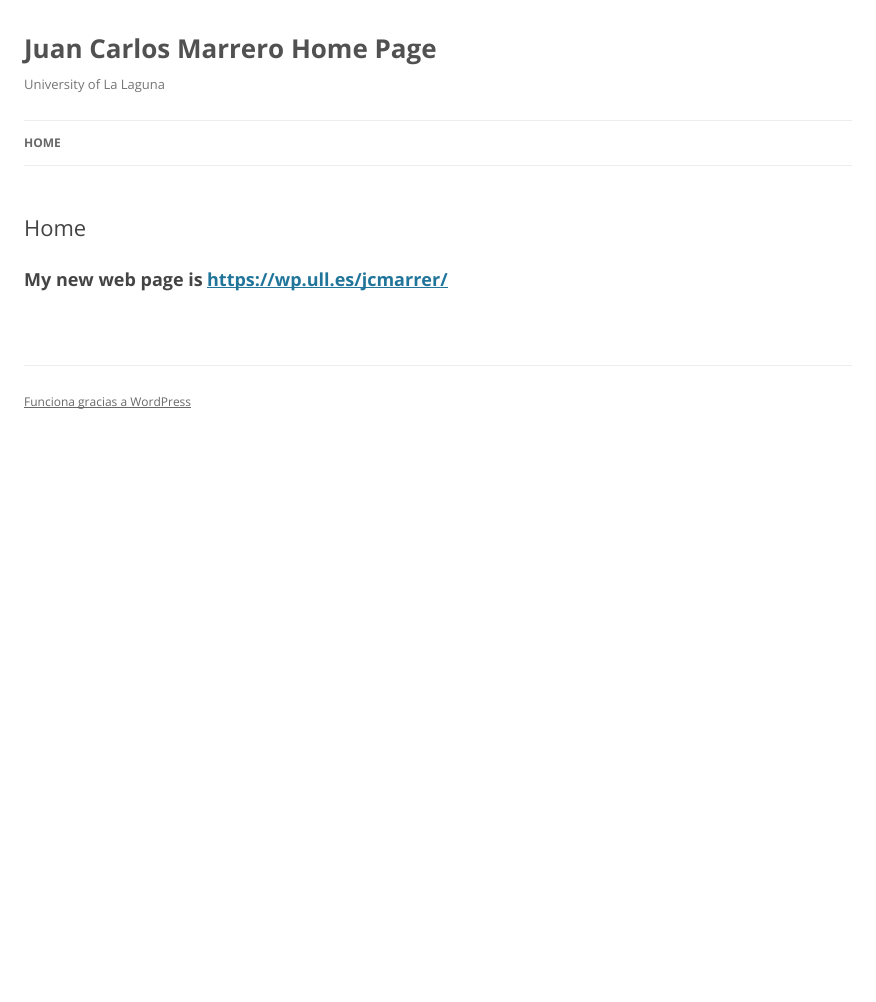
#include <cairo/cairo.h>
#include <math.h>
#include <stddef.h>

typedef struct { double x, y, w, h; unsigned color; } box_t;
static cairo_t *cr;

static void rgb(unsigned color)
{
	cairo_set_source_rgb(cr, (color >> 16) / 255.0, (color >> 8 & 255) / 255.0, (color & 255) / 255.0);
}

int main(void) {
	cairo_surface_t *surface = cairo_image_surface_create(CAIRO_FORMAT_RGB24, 876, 1002);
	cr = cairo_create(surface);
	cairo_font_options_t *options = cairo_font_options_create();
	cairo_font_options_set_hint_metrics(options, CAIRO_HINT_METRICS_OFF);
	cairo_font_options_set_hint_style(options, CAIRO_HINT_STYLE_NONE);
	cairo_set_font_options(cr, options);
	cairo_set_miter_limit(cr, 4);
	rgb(0xffffff);
	cairo_paint(cr);
	{
		static const box_t items[] = {
			{24, 120, 828, 1, 0xededed},
			{24, 165, 828, 1, 0xededed},
			{207, 287, 241, 1, 0x21759b},
			{24, 365, 828, 1, 0xededed},
			{24, 407, 167, 1, 0x686868},
		};
		for (size_t i = 0; i < sizeof items / sizeof *items; i++) {
			rgb(items[i].color);
			cairo_rectangle(cr, items[i].x, items[i].y, items[i].w, items[i].h);
			cairo_fill(cr);
		}
	}
	cairo_select_font_face(cr, "Open Sans", CAIRO_FONT_SLANT_NORMAL, CAIRO_FONT_WEIGHT_BOLD);
	cairo_set_font_size(cr, 26);
	rgb(0x515151);
	cairo_move_to(cr, 24, 58);
	cairo_show_text(cr, "Juan Carlos Marrero Home Page");
	cairo_select_font_face(cr, "Open Sans", CAIRO_FONT_SLANT_NORMAL, CAIRO_FONT_WEIGHT_NORMAL);
	cairo_set_font_size(cr, 13);
	rgb(0x757575);
	cairo_move_to(cr, 24, 89);
	cairo_show_text(cr, "University of La Laguna");
	cairo_select_font_face(cr, "Open Sans", CAIRO_FONT_SLANT_NORMAL, CAIRO_FONT_WEIGHT_BOLD);
	cairo_set_font_size(cr, 12);
	rgb(0x686868);
	cairo_move_to(cr, 24, 147);
	cairo_show_text(cr, "HOME");
	cairo_select_font_face(cr, "Open Sans", CAIRO_FONT_SLANT_NORMAL, CAIRO_FONT_WEIGHT_NORMAL);
	cairo_set_font_size(cr, 22);
	rgb(0x444444);
	cairo_move_to(cr, 24, 236);
	cairo_show_text(cr, "Home");
	cairo_select_font_face(cr, "Open Sans", CAIRO_FONT_SLANT_NORMAL, CAIRO_FONT_WEIGHT_BOLD);
	cairo_set_font_size(cr, 18);
	cairo_move_to(cr, 24, 286);
	cairo_show_text(cr, "My new web page is");
	rgb(0x21759b);
	cairo_move_to(cr, 207, 286);
	cairo_show_text(cr, "https://wp.ull.es/jcmarrer/");
	cairo_select_font_face(cr, "Open Sans", CAIRO_FONT_SLANT_NORMAL, CAIRO_FONT_WEIGHT_NORMAL);
	cairo_set_font_size(cr, 12);
	rgb(0x686868);
	cairo_move_to(cr, 24, 406);
	cairo_show_text(cr, "Funciona gracias a WordPress");
	cairo_surface_write_to_png(surface, "page.png");
	cairo_font_options_destroy(options);
	cairo_destroy(cr);
	cairo_surface_destroy(surface);
	return 0;
}
